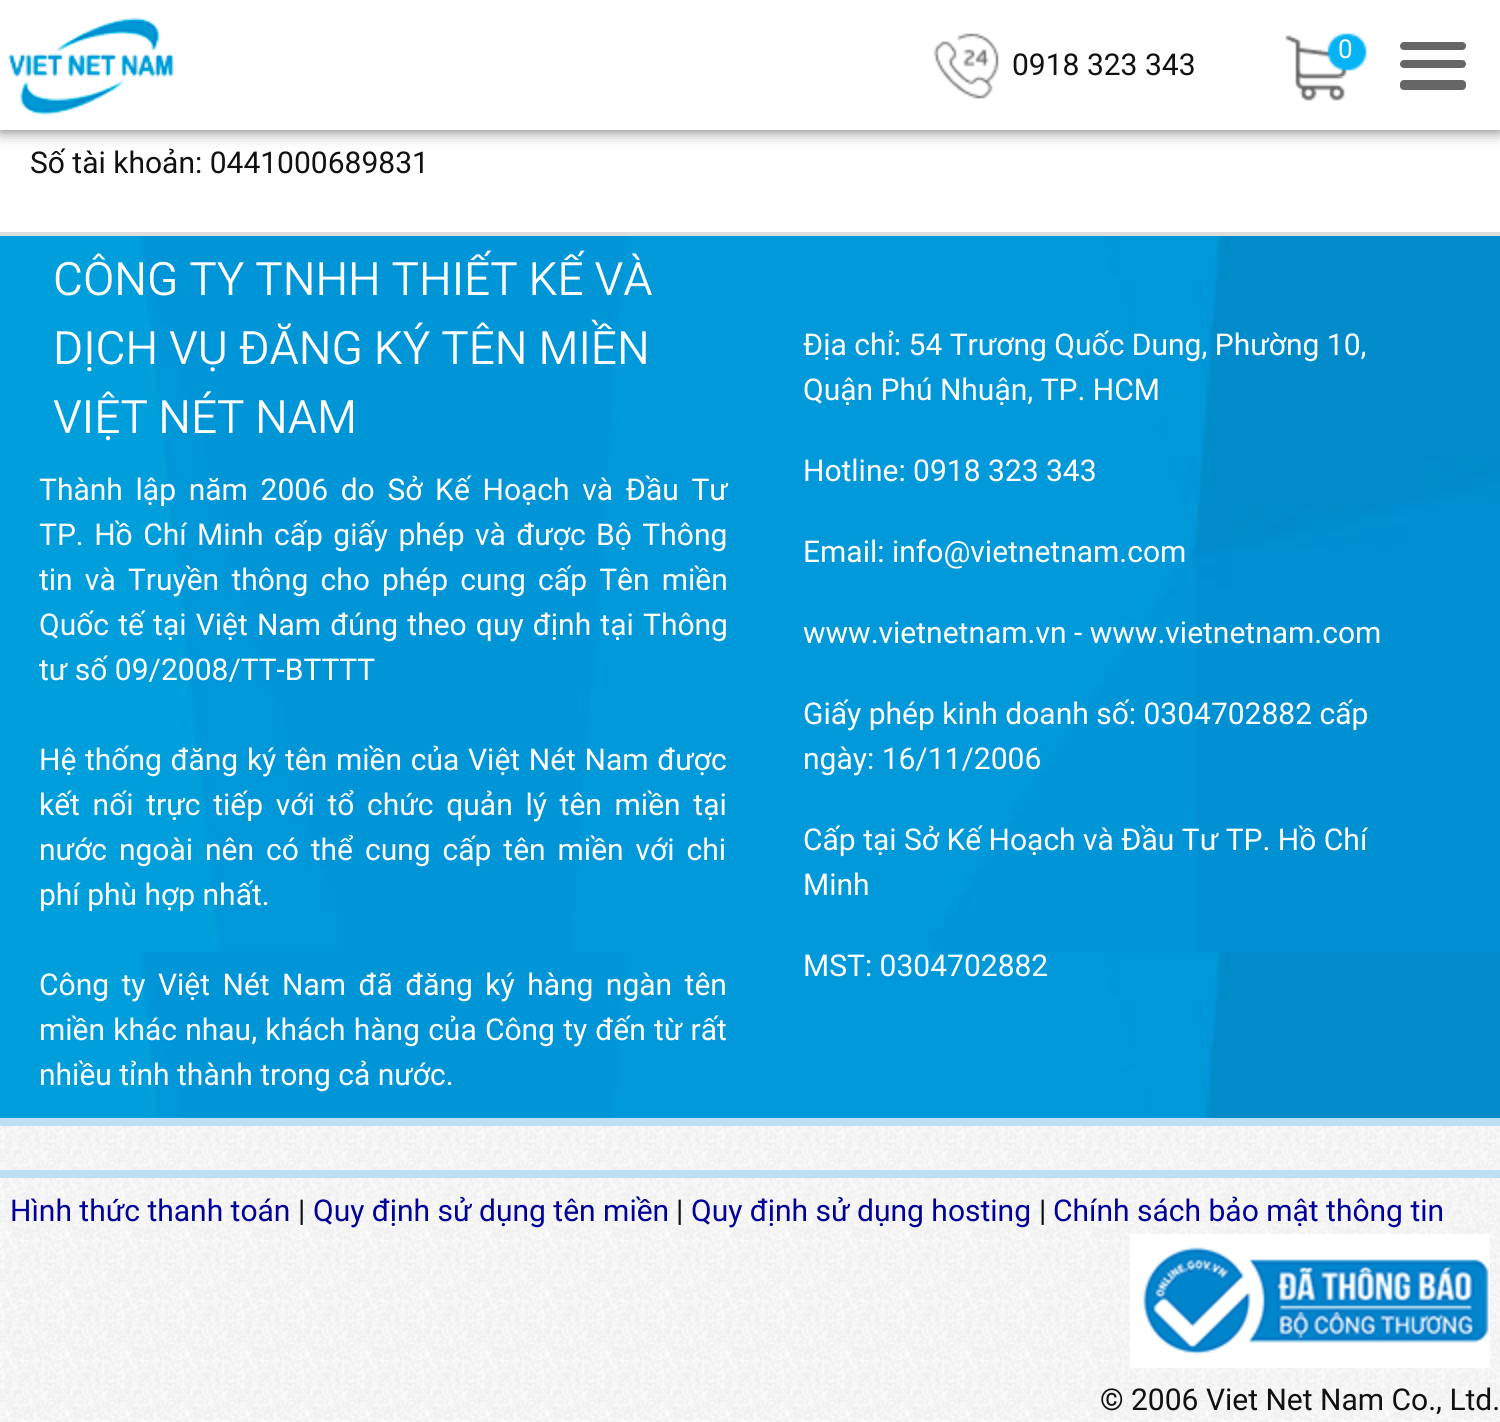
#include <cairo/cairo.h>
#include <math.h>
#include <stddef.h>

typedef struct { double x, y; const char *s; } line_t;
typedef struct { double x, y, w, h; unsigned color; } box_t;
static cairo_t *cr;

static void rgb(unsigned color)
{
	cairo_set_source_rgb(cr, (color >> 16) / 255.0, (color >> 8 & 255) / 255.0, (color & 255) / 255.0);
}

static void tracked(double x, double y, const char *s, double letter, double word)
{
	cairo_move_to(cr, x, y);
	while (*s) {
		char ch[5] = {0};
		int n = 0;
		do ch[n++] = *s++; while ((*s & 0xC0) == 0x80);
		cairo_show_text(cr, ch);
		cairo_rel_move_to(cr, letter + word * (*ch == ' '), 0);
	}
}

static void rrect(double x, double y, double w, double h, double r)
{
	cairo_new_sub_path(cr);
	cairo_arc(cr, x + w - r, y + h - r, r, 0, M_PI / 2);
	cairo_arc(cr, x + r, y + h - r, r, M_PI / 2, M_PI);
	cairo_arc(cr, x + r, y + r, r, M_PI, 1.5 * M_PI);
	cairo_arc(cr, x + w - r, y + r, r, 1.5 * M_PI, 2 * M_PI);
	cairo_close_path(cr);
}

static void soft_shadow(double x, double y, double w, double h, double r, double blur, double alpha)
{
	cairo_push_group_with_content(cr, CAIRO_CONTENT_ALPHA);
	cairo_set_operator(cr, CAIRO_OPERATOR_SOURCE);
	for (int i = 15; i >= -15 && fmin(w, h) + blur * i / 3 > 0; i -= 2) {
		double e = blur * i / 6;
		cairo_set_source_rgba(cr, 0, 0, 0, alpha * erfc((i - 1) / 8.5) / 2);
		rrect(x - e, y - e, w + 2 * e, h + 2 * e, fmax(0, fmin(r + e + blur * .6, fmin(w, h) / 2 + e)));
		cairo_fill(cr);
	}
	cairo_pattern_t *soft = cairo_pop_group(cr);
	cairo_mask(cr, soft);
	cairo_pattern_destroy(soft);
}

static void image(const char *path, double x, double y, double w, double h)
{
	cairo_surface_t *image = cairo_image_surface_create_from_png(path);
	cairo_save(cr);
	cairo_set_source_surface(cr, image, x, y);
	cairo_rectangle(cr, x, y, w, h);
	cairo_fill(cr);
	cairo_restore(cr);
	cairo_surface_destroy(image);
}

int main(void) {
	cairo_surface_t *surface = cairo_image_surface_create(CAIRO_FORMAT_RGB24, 1500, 1422);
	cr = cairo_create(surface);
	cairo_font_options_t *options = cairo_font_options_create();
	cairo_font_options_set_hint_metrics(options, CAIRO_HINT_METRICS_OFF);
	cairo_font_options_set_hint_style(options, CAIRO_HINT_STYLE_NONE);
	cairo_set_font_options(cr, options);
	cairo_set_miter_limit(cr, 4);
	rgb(0xffffff);
	cairo_paint(cr);
	rgb(0x666666);
	soft_shadow(0, 0, 1500, 130, 0, 8, 1);
	rgb(0xffffff);
	cairo_rectangle(cr, 0, 0, 1500, 130);
	cairo_fill(cr);
	image("img/1.png", 8, 17, 166, 98);
	image("img/2.png", 933, 33, 66, 66);
	image("img/3.png", 1285, 35, 53, 66);
	image("img/4.png", 1338, 33, 29, 43);
	image("img/5.png", 1338, 75, 8, 26);
	rgb(0x666666);
	rrect(1400, 42, 66, 8, 4);
	cairo_fill(cr);
	rrect(1400, 60, 66, 8, 4);
	cairo_fill(cr);
	rrect(1400, 80, 66, 10, 4);
	cairo_fill(cr);
	image("img/6.png", 0, 1126, 1500, 296);
	image("img/7.png", 0, 236, 1500, 882);
	{
		static const box_t items[] = {
			{0, 232, 1500, 4, 0xdddddd},
			{0, 1118, 1500, 8, 0xbcdff3},
			{0, 1170, 1500, 8, 0xbcdff3},
		};
		for (size_t i = 0; i < sizeof items / sizeof *items; i++) {
			rgb(items[i].color);
			cairo_rectangle(cr, items[i].x, items[i].y, items[i].w, items[i].h);
			cairo_fill(cr);
		}
	}
	image("img/8.png", 1130, 1234, 360, 134);
	cairo_select_font_face(cr, "Roboto", CAIRO_FONT_SLANT_NORMAL, CAIRO_FONT_WEIGHT_NORMAL);
	cairo_set_font_size(cr, 30);
	rgb(0x111111);
	cairo_move_to(cr, 1012, 75);
	cairo_show_text(cr, "0918 323 343");
	cairo_set_font_size(cr, 26);
	rgb(0xffffff);
	cairo_move_to(cr, 1338, 58);
	cairo_show_text(cr, "0");
	cairo_set_font_size(cr, 30);
	rgb(0x111111);
	cairo_move_to(cr, 30, 173);
	cairo_show_text(cr, "Số tài khoản: 0441000689831");
	cairo_select_font_face(cr, "Roboto Light", CAIRO_FONT_SLANT_NORMAL, CAIRO_FONT_WEIGHT_NORMAL);
	cairo_set_font_size(cr, 46);
	rgb(0xffffff);
	tracked(53, 295, "CÔNG TY TNHH THIẾT KẾ VÀ", 0, -0.5);
	tracked(53, 364, "DỊCH VỤ ĐĂNG KÝ TÊN MIỀN", 0, -0.5);
	tracked(53, 433, "VIỆT NÉT NAM", 0, -1);
	cairo_select_font_face(cr, "Roboto", CAIRO_FONT_SLANT_NORMAL, CAIRO_FONT_WEIGHT_NORMAL);
	cairo_set_font_size(cr, 30);
	tracked(39, 500, "Thành lập năm 2006 do Sở Kế Hoạch và Đầu Tư", 0, 5.25);
	tracked(39, 545, "TP. Hồ Chí Minh cấp giấy phép và được Bộ Thông", 0, 3);
	tracked(39, 590, "tin và Truyền thông cho phép cung cấp Tên miền", 0, 4.75);
	tracked(39, 635, "Quốc tế tại Việt Nam đúng theo quy định tại Thông", 0, 1.75);
	cairo_move_to(cr, 39, 680);
	cairo_show_text(cr, "tư số 09/2008/TT-BTTTT");
	tracked(39, 770, "Hệ thống đăng ký tên miền của Việt Nét Nam được", 0, 1.25);
	tracked(39, 815, "kết nối trực tiếp với tổ chức quản lý tên miền tại", 0, 5.25);
	tracked(39, 860, "nước ngoài nên có thể cung cấp tên miền với chi", 0, 4.5);
	cairo_move_to(cr, 39, 905);
	cairo_show_text(cr, "phí phù hợp nhất.");
	tracked(39, 995, "Công ty Việt Nét Nam đã đăng ký hàng ngàn tên", 0, 5);
	tracked(39, 1040, "miền khác nhau, khách hàng của Công ty đến từ rất", 0, 0.75);
	{
		static const line_t items[] = {
			{39, 1085, "nhiều tỉnh thành trong cả nước."},
			{803, 355, "Địa chỉ: 54 Trương Quốc Dung, Phường 10,"},
			{803, 400, "Quận Phú Nhuận, TP. HCM"},
			{803, 481, "Hotline: 0918 323 343"},
			{803, 562, "Email: info@vietnetnam.com"},
			{803, 643, "www.vietnetnam.vn - www.vietnetnam.com"},
			{803, 724, "Giấy phép kinh doanh số: 0304702882 cấp"},
			{803, 769, "ngày: 16/11/2006"},
			{803, 850, "Cấp tại Sở Kế Hoạch và Đầu Tư TP. Hồ Chí"},
			{803, 895, "Minh"},
			{803, 976, "MST: 0304702882"},
		};
		for (size_t i = 0; i < sizeof items / sizeof *items; i++) {
			cairo_move_to(cr, items[i].x, items[i].y);
			cairo_show_text(cr, items[i].s);
		}
	}
	rgb(0x000099);
	cairo_move_to(cr, 10, 1221);
	cairo_show_text(cr, "Hình thức thanh toán");
	rgb(0x111111);
	cairo_move_to(cr, 298, 1221);
	cairo_show_text(cr, "|");
	rgb(0x000099);
	cairo_move_to(cr, 313, 1221);
	cairo_show_text(cr, "Quy định sử dụng tên miền");
	rgb(0x111111);
	cairo_move_to(cr, 676, 1221);
	cairo_show_text(cr, "|");
	rgb(0x000099);
	cairo_move_to(cr, 691, 1221);
	cairo_show_text(cr, "Quy định sử dụng hosting");
	rgb(0x111111);
	cairo_move_to(cr, 1039, 1221);
	cairo_show_text(cr, "|");
	rgb(0x000099);
	cairo_move_to(cr, 1053, 1221);
	cairo_show_text(cr, "Chính sách bảo mật thông tin");
	rgb(0x111111);
	cairo_move_to(cr, 1100, 1410);
	cairo_show_text(cr, "© 2006 Viet Net Nam Co., Ltd.");
	cairo_surface_write_to_png(surface, "page.png");
	cairo_font_options_destroy(options);
	cairo_destroy(cr);
	cairo_surface_destroy(surface);
	return 0;
}
